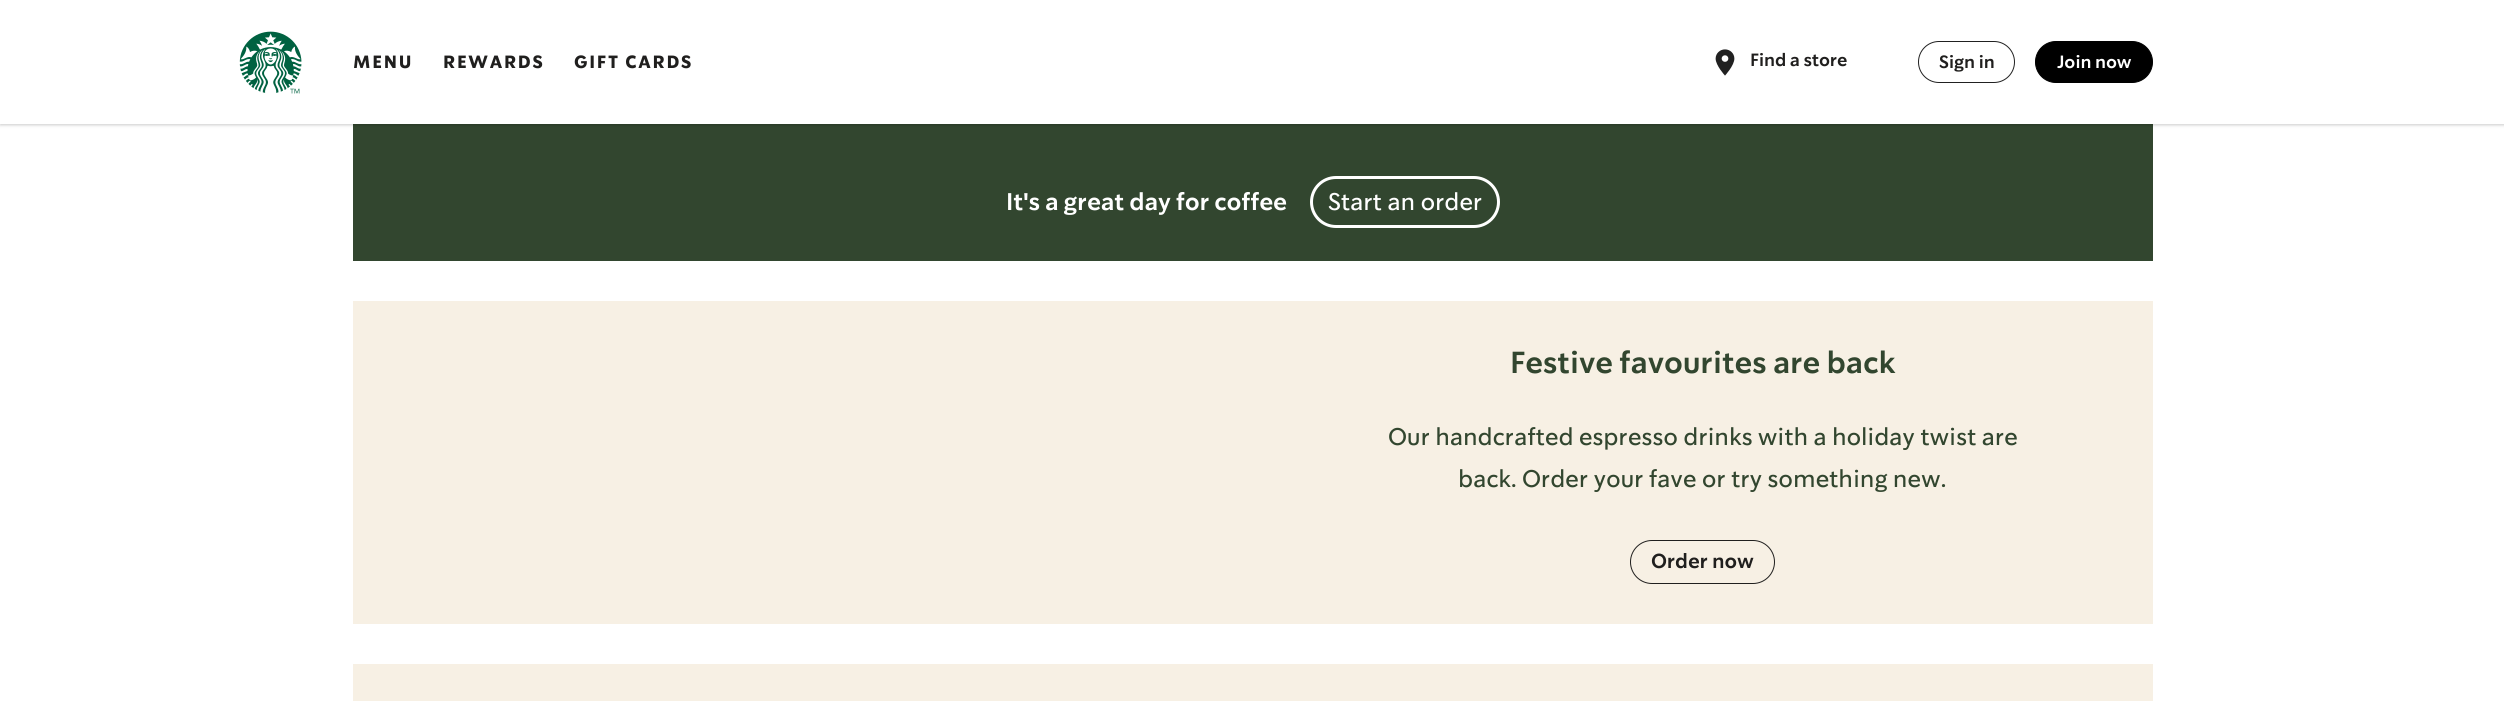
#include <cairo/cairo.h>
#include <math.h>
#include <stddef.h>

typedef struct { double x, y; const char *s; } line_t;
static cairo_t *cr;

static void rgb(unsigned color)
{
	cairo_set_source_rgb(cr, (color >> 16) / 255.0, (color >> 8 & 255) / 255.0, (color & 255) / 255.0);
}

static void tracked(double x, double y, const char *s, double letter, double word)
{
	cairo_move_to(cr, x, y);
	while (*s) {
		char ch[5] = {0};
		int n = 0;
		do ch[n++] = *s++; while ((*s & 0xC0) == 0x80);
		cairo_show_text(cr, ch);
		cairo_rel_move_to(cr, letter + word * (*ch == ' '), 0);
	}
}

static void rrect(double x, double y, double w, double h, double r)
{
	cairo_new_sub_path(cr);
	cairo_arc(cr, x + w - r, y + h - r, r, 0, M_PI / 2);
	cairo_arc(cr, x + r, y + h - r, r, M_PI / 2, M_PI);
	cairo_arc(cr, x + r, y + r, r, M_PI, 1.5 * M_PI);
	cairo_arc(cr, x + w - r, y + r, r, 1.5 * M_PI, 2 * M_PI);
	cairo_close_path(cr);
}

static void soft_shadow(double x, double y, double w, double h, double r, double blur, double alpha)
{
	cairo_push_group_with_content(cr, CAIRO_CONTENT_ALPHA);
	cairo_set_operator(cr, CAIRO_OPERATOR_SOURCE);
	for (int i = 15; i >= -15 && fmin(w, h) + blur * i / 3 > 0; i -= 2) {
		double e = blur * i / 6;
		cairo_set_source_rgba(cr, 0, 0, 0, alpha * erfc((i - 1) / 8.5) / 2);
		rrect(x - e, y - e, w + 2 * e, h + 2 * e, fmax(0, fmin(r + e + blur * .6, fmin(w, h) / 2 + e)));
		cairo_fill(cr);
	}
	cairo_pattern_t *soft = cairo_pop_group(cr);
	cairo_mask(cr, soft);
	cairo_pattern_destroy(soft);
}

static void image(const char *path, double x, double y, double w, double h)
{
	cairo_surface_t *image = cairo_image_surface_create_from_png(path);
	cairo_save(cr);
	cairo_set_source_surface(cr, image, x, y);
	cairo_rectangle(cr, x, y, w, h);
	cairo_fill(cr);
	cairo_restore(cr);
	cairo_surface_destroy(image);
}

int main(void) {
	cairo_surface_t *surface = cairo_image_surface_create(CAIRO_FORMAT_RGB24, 2504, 701);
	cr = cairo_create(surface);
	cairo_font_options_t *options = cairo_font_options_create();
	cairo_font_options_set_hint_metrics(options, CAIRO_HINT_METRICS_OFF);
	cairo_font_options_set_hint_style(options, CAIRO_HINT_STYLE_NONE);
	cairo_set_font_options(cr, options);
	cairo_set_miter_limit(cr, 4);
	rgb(0xffffff);
	cairo_paint(cr);
	rgb(0x32462f);
	cairo_rectangle(cr, 353, 124, 1800, 137);
	cairo_fill(cr);
	rgb(0x000000);
	soft_shadow(0, 0, 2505, 124, 0, 1, 0.07);
	soft_shadow(0, 3, 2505, 123, 0, 1, 0.06);
	soft_shadow(0, 1, 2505, 124, 0, 2, 0.1);
	rgb(0xffffff);
	cairo_rectangle(cr, 0, 0, 2504, 124);
	cairo_fill(cr);
	image("img/1.png", 239, 31, 63, 63);
	image("img/2.png", 1715, 49, 20, 27);
	rrect(1918.5, 41.5, 96, 41, 20.5);
	rgb(0x212121);
	cairo_set_line_width(cr, 1);
	cairo_stroke(cr);
	rgb(0x000000);
	rrect(2035.5, 41.5, 117, 41, 20.5);
	cairo_fill_preserve(cr);
	cairo_stroke(cr);
	rrect(1311.5, 177.5, 187, 49, 24.5);
	rgb(0xffffff);
	cairo_set_line_width(cr, 3);
	cairo_stroke(cr);
	rgb(0xf7f0e4);
	cairo_rectangle(cr, 353, 301, 1800, 323);
	cairo_fill(cr);
	rrect(1630.5, 540.5, 144, 43, 21.5);
	rgb(0x201f1e);
	cairo_set_line_width(cr, 1);
	cairo_stroke(cr);
	rgb(0xf7f0e4);
	cairo_rectangle(cr, 353, 664, 1800, 37);
	cairo_fill(cr);
	cairo_select_font_face(cr, "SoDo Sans", CAIRO_FONT_SLANT_NORMAL, CAIRO_FONT_WEIGHT_BOLD);
	cairo_set_font_size(cr, 17.5);
	rgb(0x201f1e);
	{
		static const line_t items[] = {
			{353, 68, "MENU"},
			{443, 68, "REWARDS"},
			{574, 68, "GIFT CARDS"},
		};
		for (size_t i = 0; i < sizeof items / sizeof *items; i++) {
			tracked(items[i].x, items[i].y, items[i].s, 1.75, 0);
		}
	}
	cairo_select_font_face(cr, "SoDo Sans SemiBold", CAIRO_FONT_SLANT_NORMAL, CAIRO_FONT_WEIGHT_NORMAL);
	tracked(1750, 66, "Find a store", -0.2, 0);
	tracked(1939, 68, "Sign in", -0.2, 0);
	rgb(0xffffff);
	tracked(2057, 68, "Join now", -0.2, 0);
	cairo_set_font_size(cr, 23.75);
	tracked(1006, 210, "It's a great day for coffee", -0.2, 0);
	cairo_select_font_face(cr, "SoDo Sans", CAIRO_FONT_SLANT_NORMAL, CAIRO_FONT_WEIGHT_NORMAL);
	tracked(1328, 210, "Start an order", -0.2, 0);
	cairo_select_font_face(cr, "SoDo Sans SemiBold", CAIRO_FONT_SLANT_NORMAL, CAIRO_FONT_WEIGHT_NORMAL);
	cairo_set_font_size(cr, 30);
	rgb(0x32462f);
	tracked(1510, 373, "Festive favourites are back", -0.2, 0);
	cairo_select_font_face(cr, "SoDo Sans", CAIRO_FONT_SLANT_NORMAL, CAIRO_FONT_WEIGHT_NORMAL);
	cairo_set_font_size(cr, 23.75);
	tracked(1388, 445, "Our handcrafted espresso drinks with a holiday twist are", -0.2, 0);
	tracked(1458, 487, "back. Order your fave or try something new.", -0.2, 0);
	cairo_select_font_face(cr, "SoDo Sans SemiBold", CAIRO_FONT_SLANT_NORMAL, CAIRO_FONT_WEIGHT_NORMAL);
	cairo_set_font_size(cr, 20);
	rgb(0x201f1e);
	tracked(1651, 568, "Order now", -0.2, 0);
	cairo_surface_write_to_png(surface, "page.png");
	cairo_font_options_destroy(options);
	cairo_destroy(cr);
	cairo_surface_destroy(surface);
	return 0;
}
